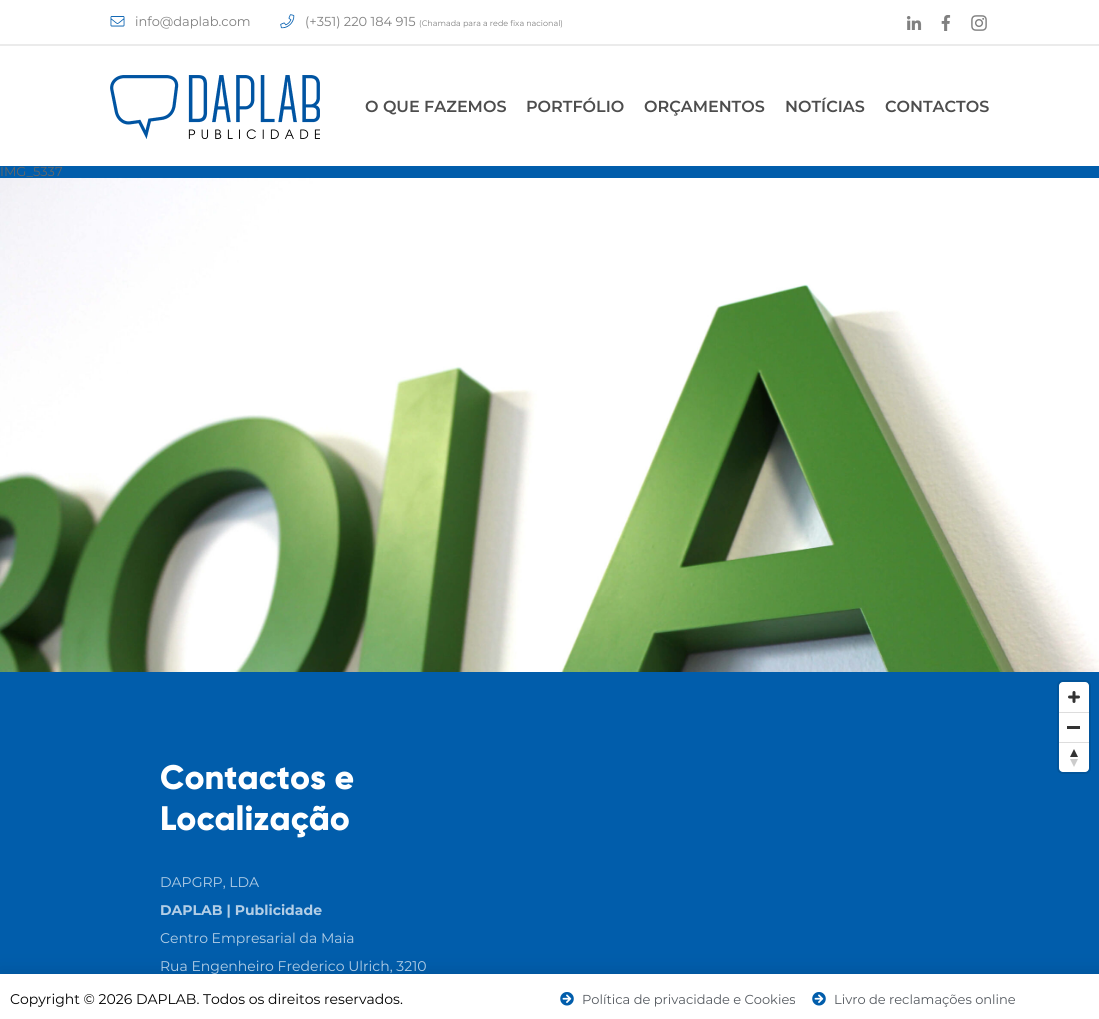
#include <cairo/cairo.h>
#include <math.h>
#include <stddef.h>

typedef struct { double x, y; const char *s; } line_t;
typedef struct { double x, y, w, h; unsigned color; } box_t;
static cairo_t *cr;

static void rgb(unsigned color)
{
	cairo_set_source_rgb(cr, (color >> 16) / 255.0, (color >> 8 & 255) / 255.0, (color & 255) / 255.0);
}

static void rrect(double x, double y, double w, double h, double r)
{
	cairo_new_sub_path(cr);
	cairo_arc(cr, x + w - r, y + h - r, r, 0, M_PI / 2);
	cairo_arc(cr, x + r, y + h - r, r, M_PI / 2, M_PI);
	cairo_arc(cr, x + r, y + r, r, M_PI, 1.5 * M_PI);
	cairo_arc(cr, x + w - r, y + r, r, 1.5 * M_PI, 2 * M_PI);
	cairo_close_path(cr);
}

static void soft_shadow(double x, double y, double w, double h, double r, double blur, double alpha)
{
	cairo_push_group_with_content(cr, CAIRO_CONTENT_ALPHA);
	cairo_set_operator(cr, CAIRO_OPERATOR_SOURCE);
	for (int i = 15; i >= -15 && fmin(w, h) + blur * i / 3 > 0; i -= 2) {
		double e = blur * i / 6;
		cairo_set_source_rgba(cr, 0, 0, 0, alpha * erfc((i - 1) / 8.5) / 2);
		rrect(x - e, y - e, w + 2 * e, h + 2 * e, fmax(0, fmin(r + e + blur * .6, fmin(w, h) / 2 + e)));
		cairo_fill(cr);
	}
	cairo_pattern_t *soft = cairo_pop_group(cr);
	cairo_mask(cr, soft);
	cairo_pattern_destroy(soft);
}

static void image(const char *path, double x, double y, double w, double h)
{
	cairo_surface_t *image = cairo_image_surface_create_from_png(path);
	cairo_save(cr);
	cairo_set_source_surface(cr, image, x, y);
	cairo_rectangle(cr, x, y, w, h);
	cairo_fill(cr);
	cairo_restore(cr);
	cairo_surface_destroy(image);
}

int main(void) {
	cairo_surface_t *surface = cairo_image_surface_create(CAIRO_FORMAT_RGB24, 1099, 1019);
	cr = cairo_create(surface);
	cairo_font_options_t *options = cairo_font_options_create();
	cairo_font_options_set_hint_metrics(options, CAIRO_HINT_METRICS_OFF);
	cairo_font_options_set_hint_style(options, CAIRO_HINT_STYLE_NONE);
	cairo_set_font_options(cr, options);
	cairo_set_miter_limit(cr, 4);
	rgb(0x015dab);
	cairo_paint(cr);
	rgb(0xffffff);
	cairo_rectangle(cr, 0, 0, 1099, 44);
	cairo_fill(cr);
	image("img/1.png", 110, 16, 15, 11);
	image("img/2.png", 280, 14, 15, 15);
	rgb(0x808080);
	cairo_rectangle(cr, 906, 16, 16, 14);
	cairo_fill(cr);
	image("img/3.png", 906, 15, 16, 16);
	cairo_rectangle(cr, 941, 15, 10, 16);
	cairo_fill(cr);
	image("img/4.png", 938, 15, 16, 16);
	cairo_rectangle(cr, 971, 15, 16, 16);
	cairo_fill(cr);
	image("img/5.png", 970, 15, 18, 16);
	rgb(0xebebeb);
	cairo_rectangle(cr, 0, 44, 1099, 2);
	cairo_fill(cr);
	rgb(0xffffff);
	cairo_rectangle(cr, 0, 46, 1099, 120);
	cairo_fill(cr);
	image("img/6.png", 110, 75, 210, 64);
	image("img/7.png", 0, 178, 1099, 494);
	rrect(1058, 681, 32, 92, 5);
	rgb(0x01549a);
	cairo_stroke(cr);
	rgb(0xffffff);
	rrect(1059, 682, 30, 90, 4);
	cairo_fill(cr);
	image("img/8.png", 1068, 691, 12, 12);
	{
		static const box_t items[] = {
			{1067, 726, 13, 3, 0x333333},
			{1059, 712, 30, 1, 0xdddddd},
			{1059, 742, 30, 1, 0xdddddd},
		};
		for (size_t i = 0; i < sizeof items / sizeof *items; i++) {
			rgb(items[i].color);
			cairo_rectangle(cr, items[i].x, items[i].y, items[i].w, items[i].h);
			cairo_fill(cr);
		}
	}
	image("img/9.png", 1070, 749, 8, 18);
	rgb(0x000000);
	soft_shadow(-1, 979, 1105, 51, 0, 11.5, 0.2);
	rgb(0xffffff);
	cairo_rectangle(cr, 0, 974, 1099, 45);
	cairo_fill(cr);
	image("img/10.png", 560, 992, 14, 14);
	image("img/10.png", 812, 992, 14, 14);
	cairo_select_font_face(cr, "Montserrat", CAIRO_FONT_SLANT_NORMAL, CAIRO_FONT_WEIGHT_NORMAL);
	cairo_set_font_size(cr, 13);
	rgb(0x808080);
	cairo_move_to(cr, 135, 26);
	cairo_show_text(cr, "info@daplab.com");
	cairo_move_to(cr, 305, 26);
	cairo_show_text(cr, "(+351) 220 184 915");
	cairo_set_font_size(cr, 8);
	cairo_move_to(cr, 419, 26);
	cairo_show_text(cr, "(Chamada para a rede fixa nacional)");
	cairo_select_font_face(cr, "Montserrat SemiBold", CAIRO_FONT_SLANT_NORMAL, CAIRO_FONT_WEIGHT_NORMAL);
	cairo_set_font_size(cr, 16);
	rgb(0x4d4d4d);
	{
		static const line_t items[] = {
			{365, 112, "O QUE FAZEMOS"},
			{526, 112, "PORTFÓLIO"},
			{644, 112, "ORÇAMENTOS"},
			{785, 112, "NOTÍCIAS"},
			{885, 112, "CONTACTOS"},
		};
		for (size_t i = 0; i < sizeof items / sizeof *items; i++) {
			cairo_move_to(cr, items[i].x, items[i].y);
			cairo_show_text(cr, items[i].s);
		}
	}
	cairo_select_font_face(cr, "Montserrat", CAIRO_FONT_SLANT_NORMAL, CAIRO_FONT_WEIGHT_NORMAL);
	cairo_set_font_size(cr, 13);
	rgb(0x666666);
	cairo_move_to(cr, 0, 176);
	cairo_show_text(cr, "IMG_5337");
	cairo_select_font_face(cr, "Gilroy ExtraBold", CAIRO_FONT_SLANT_NORMAL, CAIRO_FONT_WEIGHT_NORMAL);
	cairo_set_font_size(cr, 34);
	rgb(0xffffff);
	cairo_move_to(cr, 160, 789);
	cairo_show_text(cr, "Contactos e");
	cairo_move_to(cr, 160, 830);
	cairo_show_text(cr, "Localização");
	cairo_select_font_face(cr, "Montserrat", CAIRO_FONT_SLANT_NORMAL, CAIRO_FONT_WEIGHT_NORMAL);
	cairo_set_font_size(cr, 14);
	rgb(0xb3cee6);
	cairo_move_to(cr, 160, 887);
	cairo_show_text(cr, "DAPGRP, LDA");
	cairo_select_font_face(cr, "Montserrat", CAIRO_FONT_SLANT_NORMAL, CAIRO_FONT_WEIGHT_BOLD);
	cairo_move_to(cr, 160, 915);
	cairo_show_text(cr, "DAPLAB | Publicidade");
	cairo_select_font_face(cr, "Montserrat", CAIRO_FONT_SLANT_NORMAL, CAIRO_FONT_WEIGHT_NORMAL);
	cairo_move_to(cr, 160, 943);
	cairo_show_text(cr, "Centro Empresarial da Maia");
	cairo_move_to(cr, 160, 971);
	cairo_show_text(cr, "Rua Engenheiro Frederico Ulrich, 3210");
	rgb(0x000000);
	cairo_move_to(cr, 10, 1004);
	cairo_show_text(cr, "Copyright © 2026 DAPLAB. Todos os direitos reservados.");
	cairo_set_font_size(cr, 13);
	rgb(0x54595f);
	cairo_move_to(cr, 582, 1004);
	cairo_show_text(cr, "Política de privacidade e Cookies");
	cairo_move_to(cr, 834, 1004);
	cairo_show_text(cr, "Livro de reclamações online");
	cairo_surface_write_to_png(surface, "page.png");
	cairo_font_options_destroy(options);
	cairo_destroy(cr);
	cairo_surface_destroy(surface);
	return 0;
}
